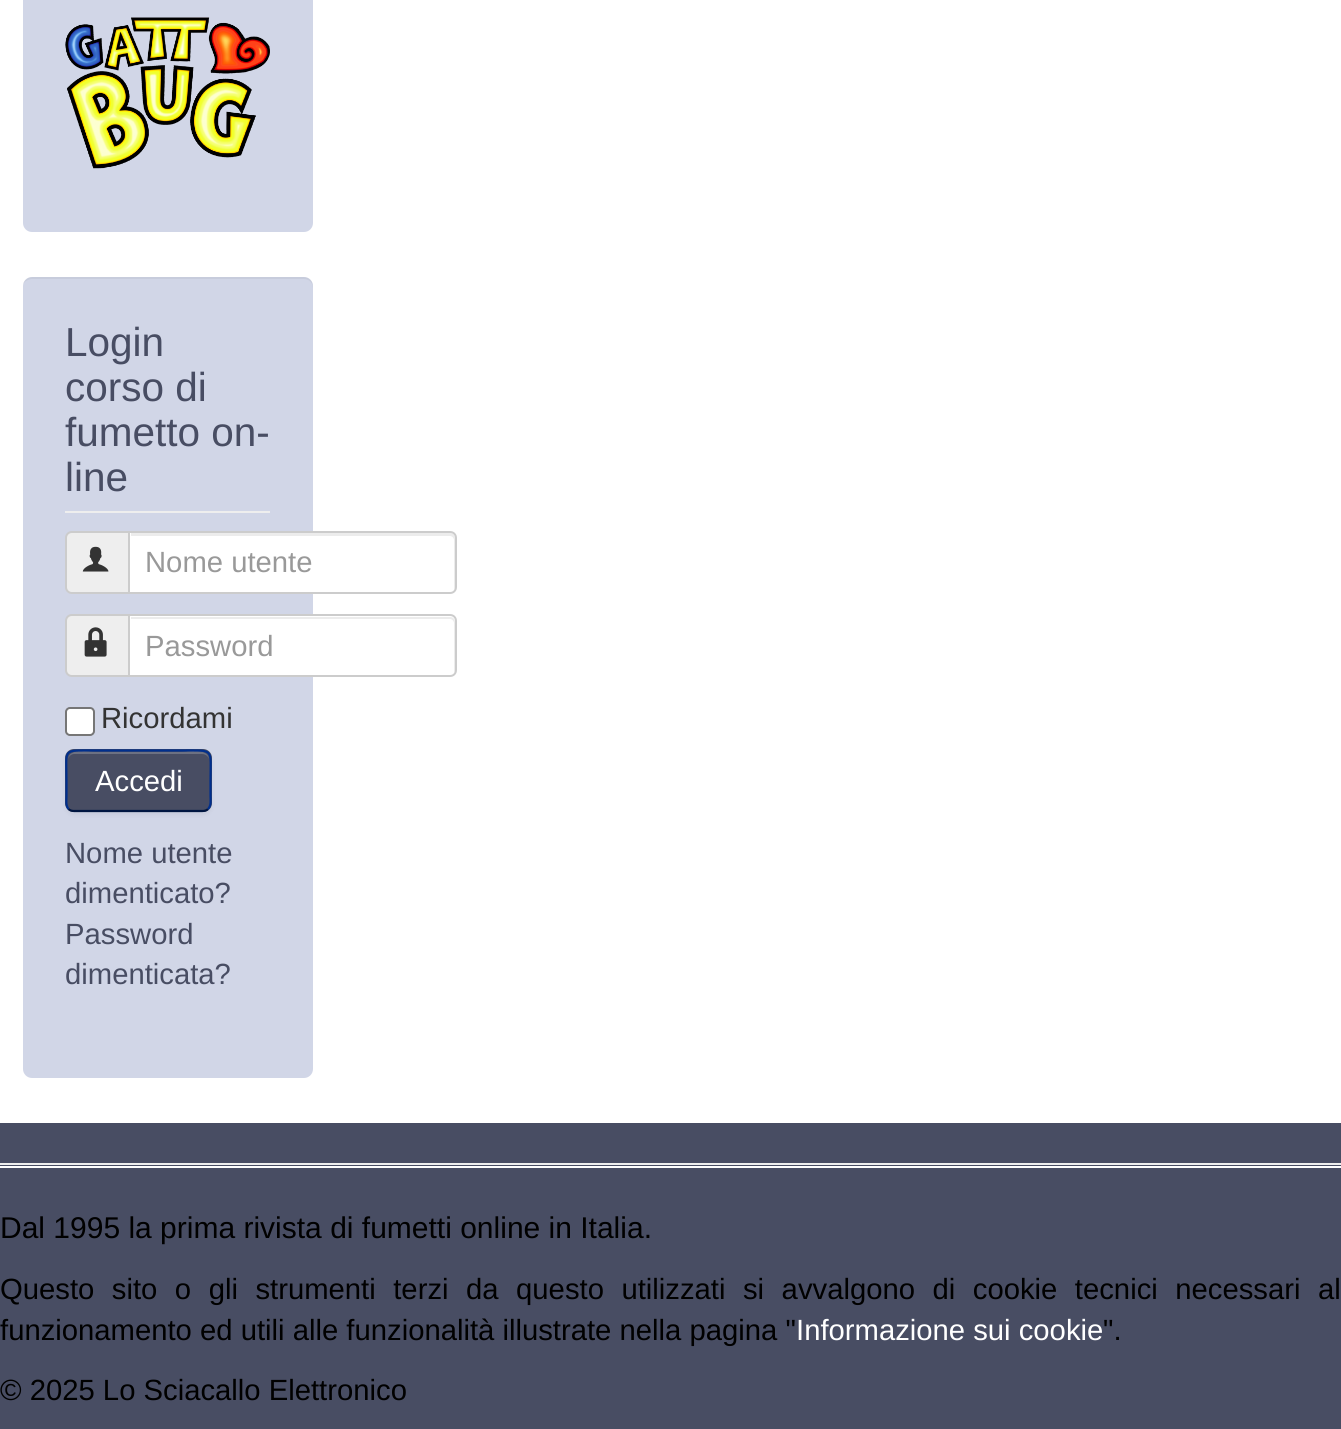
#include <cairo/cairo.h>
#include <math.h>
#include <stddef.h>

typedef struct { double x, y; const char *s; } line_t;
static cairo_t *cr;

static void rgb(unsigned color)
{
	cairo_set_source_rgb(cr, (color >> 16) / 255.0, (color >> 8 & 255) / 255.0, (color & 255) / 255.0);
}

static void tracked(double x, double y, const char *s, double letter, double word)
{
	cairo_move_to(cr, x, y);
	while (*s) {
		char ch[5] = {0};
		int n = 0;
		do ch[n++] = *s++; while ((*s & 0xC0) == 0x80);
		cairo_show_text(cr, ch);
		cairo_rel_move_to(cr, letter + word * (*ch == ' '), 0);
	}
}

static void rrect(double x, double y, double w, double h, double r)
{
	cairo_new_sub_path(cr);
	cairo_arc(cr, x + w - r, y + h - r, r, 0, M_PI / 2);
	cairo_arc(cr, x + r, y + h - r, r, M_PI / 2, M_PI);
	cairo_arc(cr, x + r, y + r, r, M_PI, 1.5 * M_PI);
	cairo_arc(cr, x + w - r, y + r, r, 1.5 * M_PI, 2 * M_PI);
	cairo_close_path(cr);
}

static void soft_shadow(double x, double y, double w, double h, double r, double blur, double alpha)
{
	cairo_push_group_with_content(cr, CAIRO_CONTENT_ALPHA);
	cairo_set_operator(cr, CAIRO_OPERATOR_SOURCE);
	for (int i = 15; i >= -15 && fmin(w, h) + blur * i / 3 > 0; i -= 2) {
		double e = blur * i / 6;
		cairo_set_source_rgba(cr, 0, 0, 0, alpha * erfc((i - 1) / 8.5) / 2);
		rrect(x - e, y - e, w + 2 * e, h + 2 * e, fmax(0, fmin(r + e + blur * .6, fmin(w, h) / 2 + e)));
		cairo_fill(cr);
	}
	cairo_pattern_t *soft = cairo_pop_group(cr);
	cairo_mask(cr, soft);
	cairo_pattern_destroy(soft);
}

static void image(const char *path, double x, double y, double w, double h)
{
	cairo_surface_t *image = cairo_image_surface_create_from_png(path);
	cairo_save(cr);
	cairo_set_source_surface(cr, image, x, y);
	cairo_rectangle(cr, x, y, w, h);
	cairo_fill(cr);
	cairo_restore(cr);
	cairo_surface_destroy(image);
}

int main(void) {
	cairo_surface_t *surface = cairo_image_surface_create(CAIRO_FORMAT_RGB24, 1341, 1429);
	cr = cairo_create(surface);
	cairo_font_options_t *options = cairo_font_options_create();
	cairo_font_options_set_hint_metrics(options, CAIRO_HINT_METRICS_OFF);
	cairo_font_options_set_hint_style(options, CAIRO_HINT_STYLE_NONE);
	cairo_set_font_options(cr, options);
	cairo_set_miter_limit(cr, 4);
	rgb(0x484d63);
	cairo_paint(cr);
	rgb(0xffffff);
	cairo_rectangle(cr, 0, 0, 1341, 1123);
	cairo_fill(cr);
	rgb(0xd1d6e7);
	rrect(23, -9, 290, 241, 9);
	cairo_fill(cr);
	image("img/1.png", 65, 17, 205, 152);
	rrect(23, 277, 290, 801, 9);
	cairo_fill(cr);
	cairo_set_source_rgba(cr, 0, 0, 0, 0.05);
	cairo_new_path(cr);
	cairo_move_to(cr, 32, 279);
	cairo_line_to(cr, 304, 279);
	cairo_curve_to(cr, 309, 279, 313, 283, 313, 288);
	cairo_line_to(cr, 313, 286);
	cairo_curve_to(cr, 313, 281, 309, 277, 304, 277);
	cairo_line_to(cr, 32, 277);
	cairo_curve_to(cr, 28, 277, 24, 280, 23, 284);
	cairo_curve_to(cr, 25, 281, 29, 279, 32, 279);
	cairo_close_path(cr);
	cairo_fill(cr);
	rgb(0xeeeeee);
	cairo_rectangle(cr, 65, 511, 205, 2);
	cairo_fill(cr);
	cairo_new_path(cr);
	cairo_move_to(cr, 72, 532);
	cairo_line_to(cr, 130, 532);
	cairo_line_to(cr, 130, 593);
	cairo_line_to(cr, 72, 593);
	cairo_curve_to(cr, 68.5, 593, 66, 590.5, 66, 587);
	cairo_line_to(cr, 66, 538);
	cairo_curve_to(cr, 66, 534.5, 68.5, 532, 72, 532);
	cairo_close_path(cr);
	cairo_fill_preserve(cr);
	rgb(0xcccccc);
	cairo_stroke(cr);
	image("img/2.png", 82, 546, 27, 26);
	rgb(0xffffff);
	cairo_new_path(cr);
	cairo_move_to(cr, 128, 531);
	cairo_line_to(cr, 450, 531);
	cairo_curve_to(cr, 454, 531, 457, 534, 457, 538);
	cairo_line_to(cr, 457, 587);
	cairo_curve_to(cr, 457, 591, 454, 594, 450, 594);
	cairo_line_to(cr, 128, 594);
	cairo_close_path(cr);
	cairo_fill(cr);
	rgb(0xececec);
	cairo_new_path(cr);
	cairo_move_to(cr, 131, 533);
	cairo_line_to(cr, 131, 536);
	cairo_line_to(cr, 450, 536);
	cairo_curve_to(cr, 452, 536, 454, 538, 454, 540);
	cairo_line_to(cr, 454, 590);
	cairo_curve_to(cr, 455, 589, 455, 588, 455, 587);
	cairo_line_to(cr, 455, 538);
	cairo_curve_to(cr, 455, 535, 453, 533, 450, 533);
	cairo_close_path(cr);
	cairo_fill(cr);
	cairo_new_path(cr);
	cairo_move_to(cr, 129, 532);
	cairo_line_to(cr, 450, 532);
	cairo_curve_to(cr, 453.5, 532, 456, 534.5, 456, 538);
	cairo_line_to(cr, 456, 587);
	cairo_curve_to(cr, 456, 590.5, 453.5, 593, 450, 593);
	cairo_line_to(cr, 129, 593);
	cairo_close_path(cr);
	rgb(0xcccccc);
	cairo_stroke(cr);
	rgb(0xeeeeee);
	cairo_new_path(cr);
	cairo_move_to(cr, 72, 615);
	cairo_line_to(cr, 130, 615);
	cairo_line_to(cr, 130, 676);
	cairo_line_to(cr, 72, 676);
	cairo_curve_to(cr, 68.5, 676, 66, 673.5, 66, 670);
	cairo_line_to(cr, 66, 621);
	cairo_curve_to(cr, 66, 617.5, 68.5, 615, 72, 615);
	cairo_close_path(cr);
	cairo_fill_preserve(cr);
	rgb(0xcccccc);
	cairo_stroke(cr);
	image("img/3.png", 84, 627, 23, 30);
	rgb(0xffffff);
	cairo_new_path(cr);
	cairo_move_to(cr, 128, 614);
	cairo_line_to(cr, 450, 614);
	cairo_curve_to(cr, 454, 614, 457, 617, 457, 621);
	cairo_line_to(cr, 457, 670);
	cairo_curve_to(cr, 457, 674, 454, 677, 450, 677);
	cairo_line_to(cr, 128, 677);
	cairo_close_path(cr);
	cairo_fill(cr);
	rgb(0xececec);
	cairo_new_path(cr);
	cairo_move_to(cr, 131, 617);
	cairo_line_to(cr, 131, 619);
	cairo_line_to(cr, 450, 619);
	cairo_curve_to(cr, 452, 619, 454, 621, 454, 623);
	cairo_line_to(cr, 454, 673);
	cairo_curve_to(cr, 455, 672, 455, 671, 455, 670);
	cairo_line_to(cr, 455, 622);
	cairo_curve_to(cr, 455, 619, 453, 617, 450, 617);
	cairo_close_path(cr);
	cairo_fill(cr);
	cairo_new_path(cr);
	cairo_move_to(cr, 129, 615);
	cairo_line_to(cr, 450, 615);
	cairo_curve_to(cr, 453.5, 615, 456, 617.5, 456, 621);
	cairo_line_to(cr, 456, 670);
	cairo_curve_to(cr, 456, 673.5, 453.5, 676, 450, 676);
	cairo_line_to(cr, 129, 676);
	cairo_close_path(cr);
	rgb(0xcccccc);
	cairo_stroke(cr);
	rgb(0xffffff);
	rrect(66, 708, 28, 27, 4);
	cairo_fill_preserve(cr);
	rgb(0x767676);
	cairo_stroke(cr);
	rgb(0x000000);
	soft_shadow(65, 752, 147, 63, 9, 2, 0.05);
	rgb(0x484d63);
	rrect(65, 749, 147, 63, 9);
	cairo_fill(cr);
	rgb(0x6d7182);
	cairo_new_path(cr);
	cairo_move_to(cr, 74, 754);
	cairo_line_to(cr, 202, 754);
	cairo_curve_to(cr, 206, 754, 209, 757, 209, 760);
	cairo_curve_to(cr, 209, 747, 187, 752, 181, 752);
	cairo_line_to(cr, 96, 752);
	cairo_curve_to(cr, 90, 752, 68, 747, 68, 760);
	cairo_curve_to(cr, 68, 757, 71, 754, 74, 754);
	cairo_close_path(cr);
	cairo_fill(cr);
	cairo_new_path(cr);
	cairo_move_to(cr, 208, 809);
	cairo_curve_to(cr, 206.5, 810.5, 204.5, 811, 202.5, 811);
	cairo_line_to(cr, 74, 811);
	cairo_curve_to(cr, 72, 811, 70, 810.5, 68.5, 809);
	rgb(0x001641);
	cairo_set_line_width(cr, 2.2);
	cairo_stroke(cr);
	cairo_new_path(cr);
	cairo_move_to(cr, 68.5, 809);
	cairo_curve_to(cr, 65.5, 805.5, 66.5, 800, 66.5, 796);
	cairo_line_to(cr, 66.5, 781);
	cairo_curve_to(cr, 66.5, 747.5, 61.5, 750.5, 95.5, 750.5);
	cairo_line_to(cr, 181, 750.5);
	cairo_curve_to(cr, 215, 750.5, 210.5, 747.5, 210.5, 781);
	cairo_line_to(cr, 210.5, 796);
	cairo_curve_to(cr, 210.5, 800, 211.5, 805.5, 208, 809);
	rgb(0x002f8d);
	cairo_stroke(cr);
	rgb(0xeeeeee);
	cairo_rectangle(cr, 0, 1163, 1341, 2);
	cairo_fill(cr);
	rgb(0xffffff);
	cairo_rectangle(cr, 0, 1166, 1341, 2);
	cairo_fill(cr);
	cairo_select_font_face(cr, "Liberation Sans", CAIRO_FONT_SLANT_NORMAL, CAIRO_FONT_WEIGHT_NORMAL);
	cairo_set_font_size(cr, 40.5);
	rgb(0x484d63);
	{
		static const line_t items[] = {
			{65, 356, "Login"},
			{65, 401, "corso di"},
			{65, 446, "fumetto on-"},
			{65, 491, "line"},
		};
		for (size_t i = 0; i < sizeof items / sizeof *items; i++) {
			cairo_move_to(cr, items[i].x, items[i].y);
			cairo_show_text(cr, items[i].s);
		}
	}
	cairo_set_font_size(cr, 29.25);
	rgb(0x999999);
	cairo_move_to(cr, 145, 572);
	cairo_show_text(cr, "Nome utente");
	cairo_move_to(cr, 145, 656);
	cairo_show_text(cr, "Password");
	rgb(0x333333);
	cairo_move_to(cr, 101, 728);
	cairo_show_text(cr, "Ricordami");
	rgb(0xffffff);
	cairo_move_to(cr, 95, 791);
	cairo_show_text(cr, "Accedi");
	rgb(0x484d63);
	{
		static const line_t items[] = {
			{65, 863, "Nome utente"},
			{65, 903, "dimenticato?"},
			{65, 944, "Password"},
			{65, 984, "dimenticata?"},
		};
		for (size_t i = 0; i < sizeof items / sizeof *items; i++) {
			cairo_move_to(cr, items[i].x, items[i].y);
			cairo_show_text(cr, items[i].s);
		}
	}
	cairo_set_font_size(cr, 30);
	rgb(0x000000);
	cairo_move_to(cr, 0, 1238);
	cairo_show_text(cr, "Dal 1995 la prima rivista di fumetti online in Italia.");
	cairo_set_font_size(cr, 29.25);
	tracked(0, 1299, "Questo sito o gli strumenti terzi da questo utilizzati si avvalgono di cookie tecnici necessari al", 0, 9.4);
	cairo_move_to(cr, 0, 1340);
	cairo_show_text(cr, "funzionamento ed utili alle funzionalità illustrate nella pagina \"");
	rgb(0xffffff);
	cairo_move_to(cr, 796, 1340);
	cairo_show_text(cr, "Informazione sui cookie");
	rgb(0x000000);
	cairo_move_to(cr, 1103, 1340);
	cairo_show_text(cr, "\".");
	cairo_move_to(cr, 0, 1400);
	cairo_show_text(cr, "© 2025 Lo Sciacallo Elettronico");
	cairo_surface_write_to_png(surface, "page.png");
	cairo_font_options_destroy(options);
	cairo_destroy(cr);
	cairo_surface_destroy(surface);
	return 0;
}
